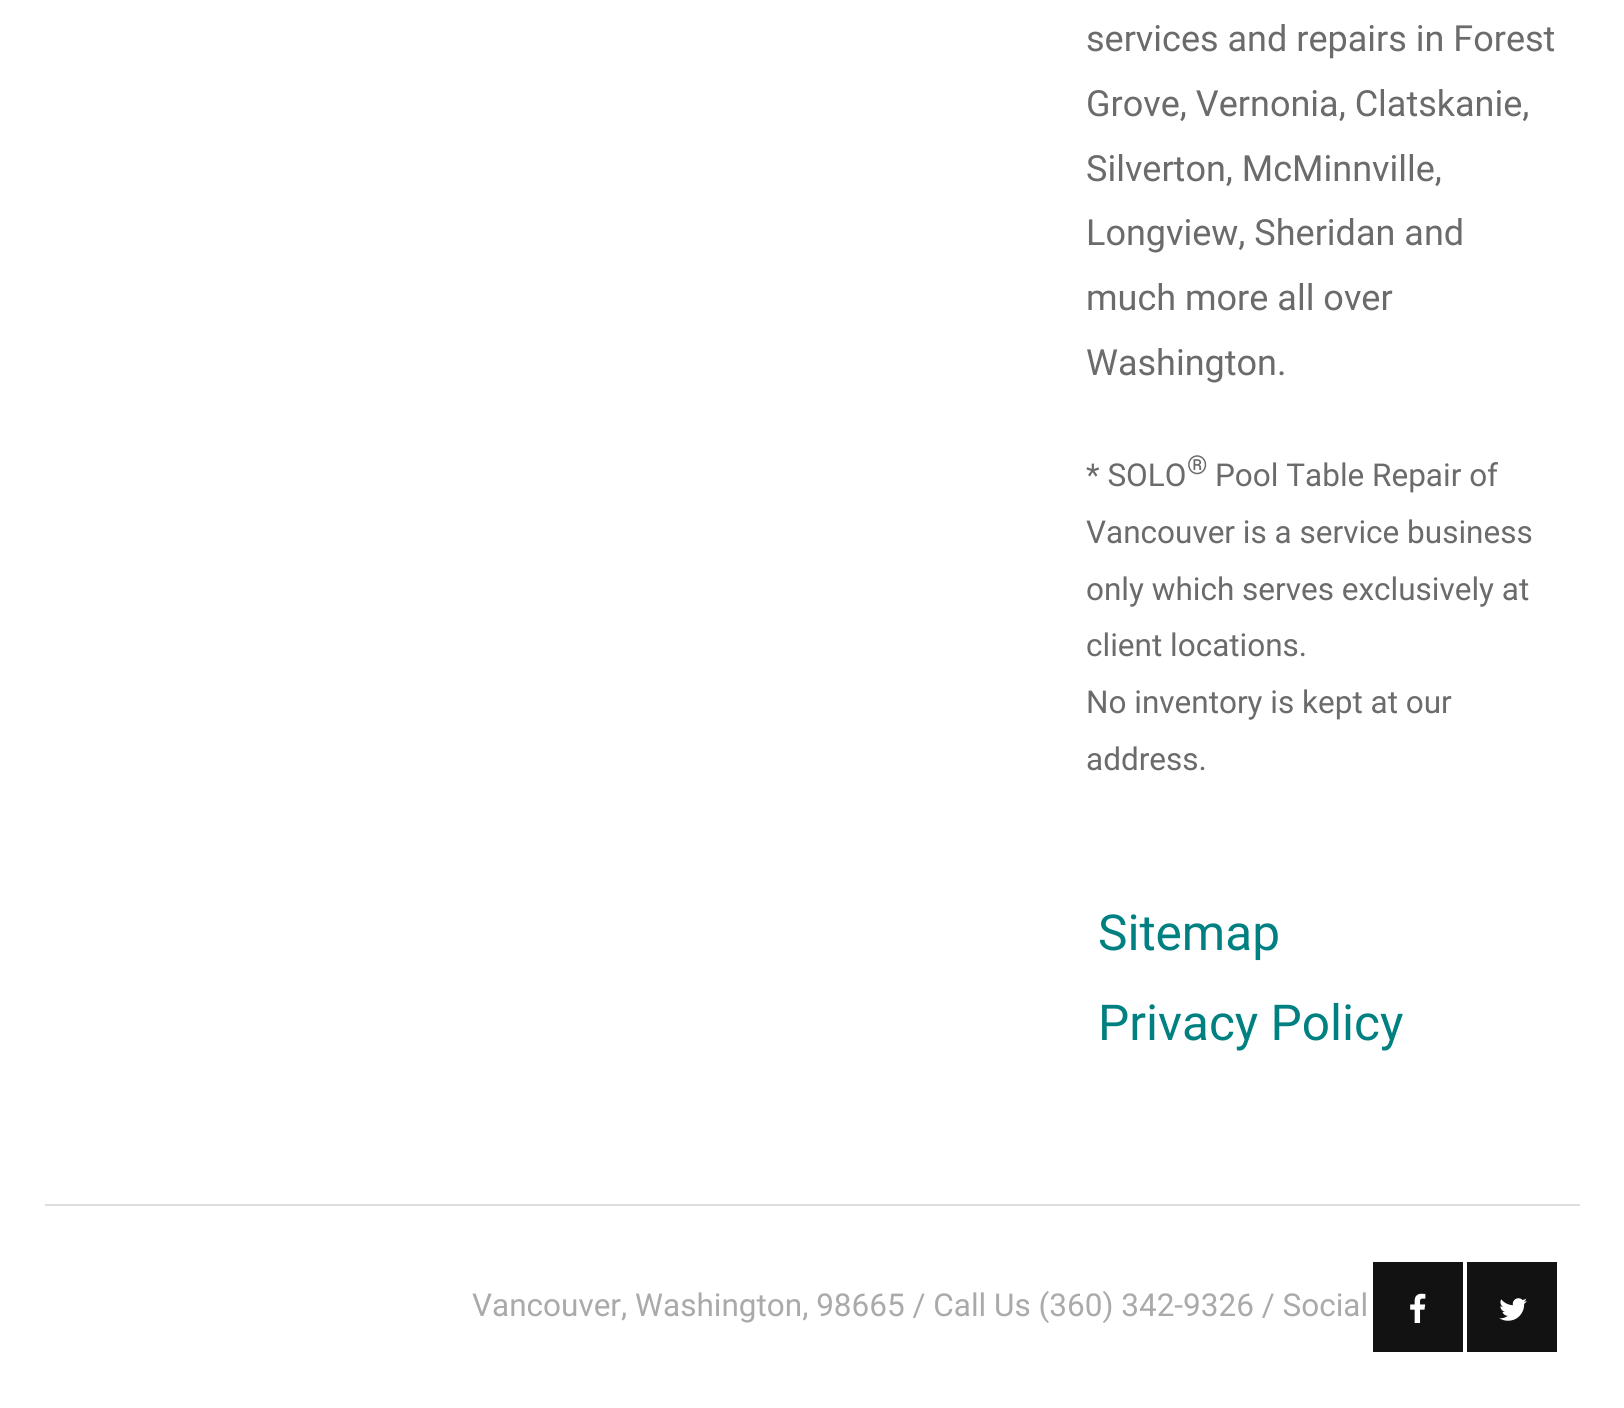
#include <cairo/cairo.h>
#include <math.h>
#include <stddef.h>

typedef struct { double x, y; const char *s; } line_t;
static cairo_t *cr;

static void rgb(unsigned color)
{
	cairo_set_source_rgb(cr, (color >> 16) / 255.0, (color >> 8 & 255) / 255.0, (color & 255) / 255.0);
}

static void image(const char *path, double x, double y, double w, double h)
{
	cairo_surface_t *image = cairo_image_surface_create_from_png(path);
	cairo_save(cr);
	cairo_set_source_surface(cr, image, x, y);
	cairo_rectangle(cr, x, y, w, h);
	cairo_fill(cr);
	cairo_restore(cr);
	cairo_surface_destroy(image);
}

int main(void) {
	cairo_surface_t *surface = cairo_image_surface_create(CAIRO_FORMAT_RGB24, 1624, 1408);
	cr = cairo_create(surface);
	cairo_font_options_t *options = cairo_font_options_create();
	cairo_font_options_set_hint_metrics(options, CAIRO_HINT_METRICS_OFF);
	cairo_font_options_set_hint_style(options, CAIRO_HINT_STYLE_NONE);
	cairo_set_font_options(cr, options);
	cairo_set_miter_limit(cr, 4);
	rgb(0xffffff);
	cairo_paint(cr);
	rgb(0xdddddd);
	cairo_rectangle(cr, 45, 1204, 1535, 2);
	cairo_fill(cr);
	rgb(0x121212);
	cairo_rectangle(cr, 1373, 1262, 90, 90);
	cairo_fill(cr);
	image("img/1.png", 1410, 1293, 16, 30);
	cairo_rectangle(cr, 1467, 1262, 90, 90);
	cairo_fill(cr);
	image("img/2.png", 1499, 1298, 28, 23);
	cairo_select_font_face(cr, "Roboto", CAIRO_FONT_SLANT_NORMAL, CAIRO_FONT_WEIGHT_NORMAL);
	cairo_set_font_size(cr, 36);
	rgb(0x6b6b6b);
	{
		static const line_t items[] = {
			{1086, 51, "services and repairs in Forest"},
			{1086, 116, "Grove, Vernonia, Clatskanie,"},
			{1086, 181, "Silverton, McMinnville,"},
			{1086, 245, "Longview, Sheridan and"},
			{1086, 310, "much more all over"},
			{1086, 375, "Washington."},
		};
		for (size_t i = 0; i < sizeof items / sizeof *items; i++) {
			cairo_move_to(cr, items[i].x, items[i].y);
			cairo_show_text(cr, items[i].s);
		}
	}
	cairo_set_font_size(cr, 31.5);
	cairo_move_to(cr, 1086, 486);
	cairo_show_text(cr, "* SOLO");
	cairo_set_font_size(cr, 26);
	cairo_move_to(cr, 1187, 474);
	cairo_show_text(cr, "®");
	cairo_set_font_size(cr, 31.5);
	{
		static const line_t items[] = {
			{1215, 486, "Pool Table Repair of"},
			{1086, 543, "Vancouver is a service business"},
			{1086, 600, "only which serves exclusively at"},
			{1086, 656, "client locations."},
			{1086, 713, "No inventory is kept at our"},
			{1086, 770, "address."},
		};
		for (size_t i = 0; i < sizeof items / sizeof *items; i++) {
			cairo_move_to(cr, items[i].x, items[i].y);
			cairo_show_text(cr, items[i].s);
		}
	}
	cairo_set_font_size(cr, 49.5);
	rgb(0x008080);
	cairo_move_to(cr, 1098, 950);
	cairo_show_text(cr, "Sitemap");
	cairo_move_to(cr, 1098, 1040);
	cairo_show_text(cr, "Privacy Policy");
	cairo_set_font_size(cr, 31.5);
	rgb(0xaaaaaa);
	cairo_move_to(cr, 472, 1316);
	cairo_show_text(cr, "Vancouver, Washington, 98665 / Call Us (360) 342-9326 / Social");
	cairo_surface_write_to_png(surface, "page.png");
	cairo_font_options_destroy(options);
	cairo_destroy(cr);
	cairo_surface_destroy(surface);
	return 0;
}
